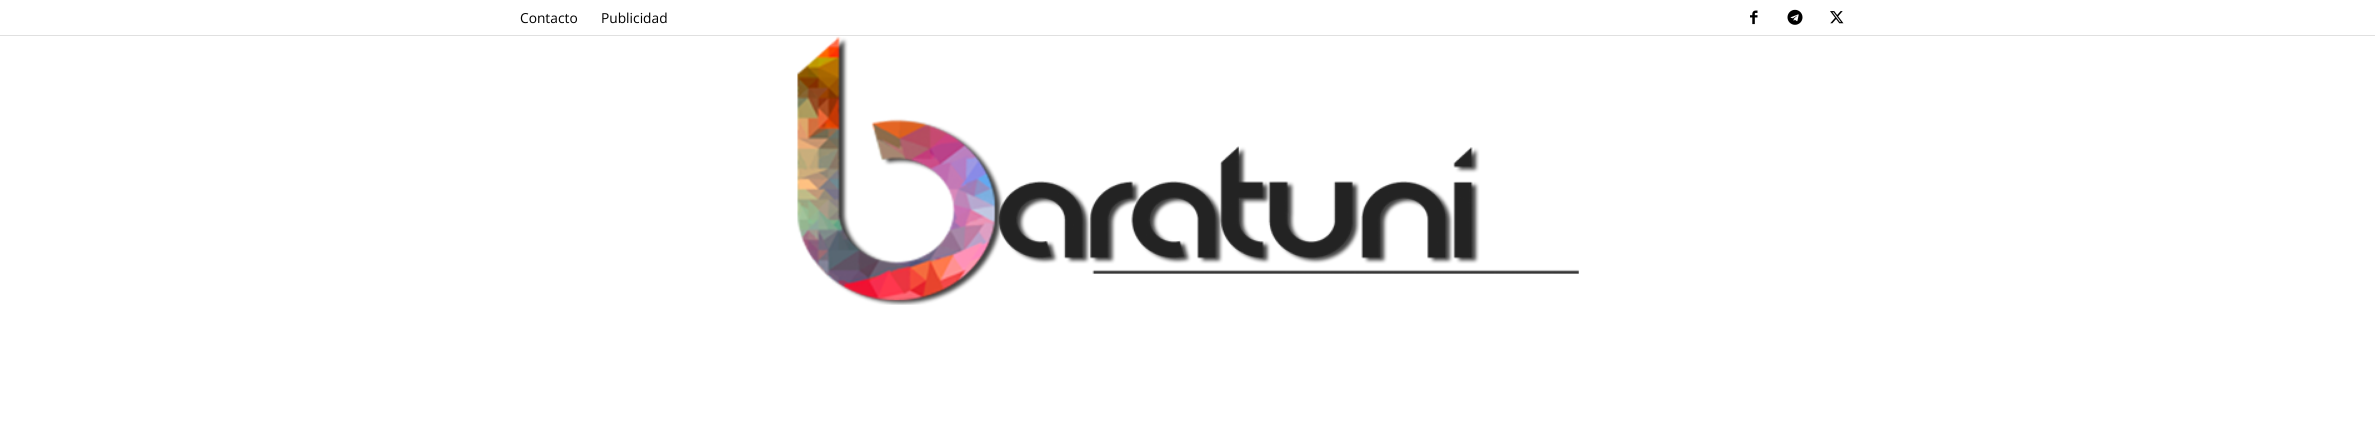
#include <cairo/cairo.h>
#include <math.h>
#include <stddef.h>

static cairo_t *cr;

static void rgb(unsigned color)
{
	cairo_set_source_rgb(cr, (color >> 16) / 255.0, (color >> 8 & 255) / 255.0, (color & 255) / 255.0);
}

static void image(const char *path, double x, double y, double w, double h)
{
	cairo_surface_t *image = cairo_image_surface_create_from_png(path);
	cairo_save(cr);
	cairo_set_source_surface(cr, image, x, y);
	cairo_rectangle(cr, x, y, w, h);
	cairo_fill(cr);
	cairo_restore(cr);
	cairo_surface_destroy(image);
}

int main(void) {
	cairo_surface_t *surface = cairo_image_surface_create(CAIRO_FORMAT_RGB24, 2375, 444);
	cr = cairo_create(surface);
	cairo_font_options_t *options = cairo_font_options_create();
	cairo_font_options_set_hint_metrics(options, CAIRO_HINT_METRICS_OFF);
	cairo_font_options_set_hint_style(options, CAIRO_HINT_STYLE_NONE);
	cairo_set_font_options(cr, options);
	cairo_set_miter_limit(cr, 4);
	rgb(0xffffff);
	cairo_paint(cr);
	rgb(0xe0e0e0);
	cairo_rectangle(cr, 0, 35, 2375, 1);
	cairo_fill(cr);
	image("img/1.png", 1750, 10, 8, 15);
	image("img/2.png", 1787, 9, 16, 16);
	image("img/3.png", 1830, 11, 14, 13);
	image("img/4.png", 797, 36, 782, 269);
	cairo_select_font_face(cr, "Open Sans", CAIRO_FONT_SLANT_NORMAL, CAIRO_FONT_WEIGHT_NORMAL);
	cairo_set_font_size(cr, 13.75);
	rgb(0x000000);
	cairo_move_to(cr, 520, 23);
	cairo_show_text(cr, "Contacto");
	cairo_move_to(cr, 601, 23);
	cairo_show_text(cr, "Publicidad");
	cairo_surface_write_to_png(surface, "page.png");
	cairo_font_options_destroy(options);
	cairo_destroy(cr);
	cairo_surface_destroy(surface);
	return 0;
}
